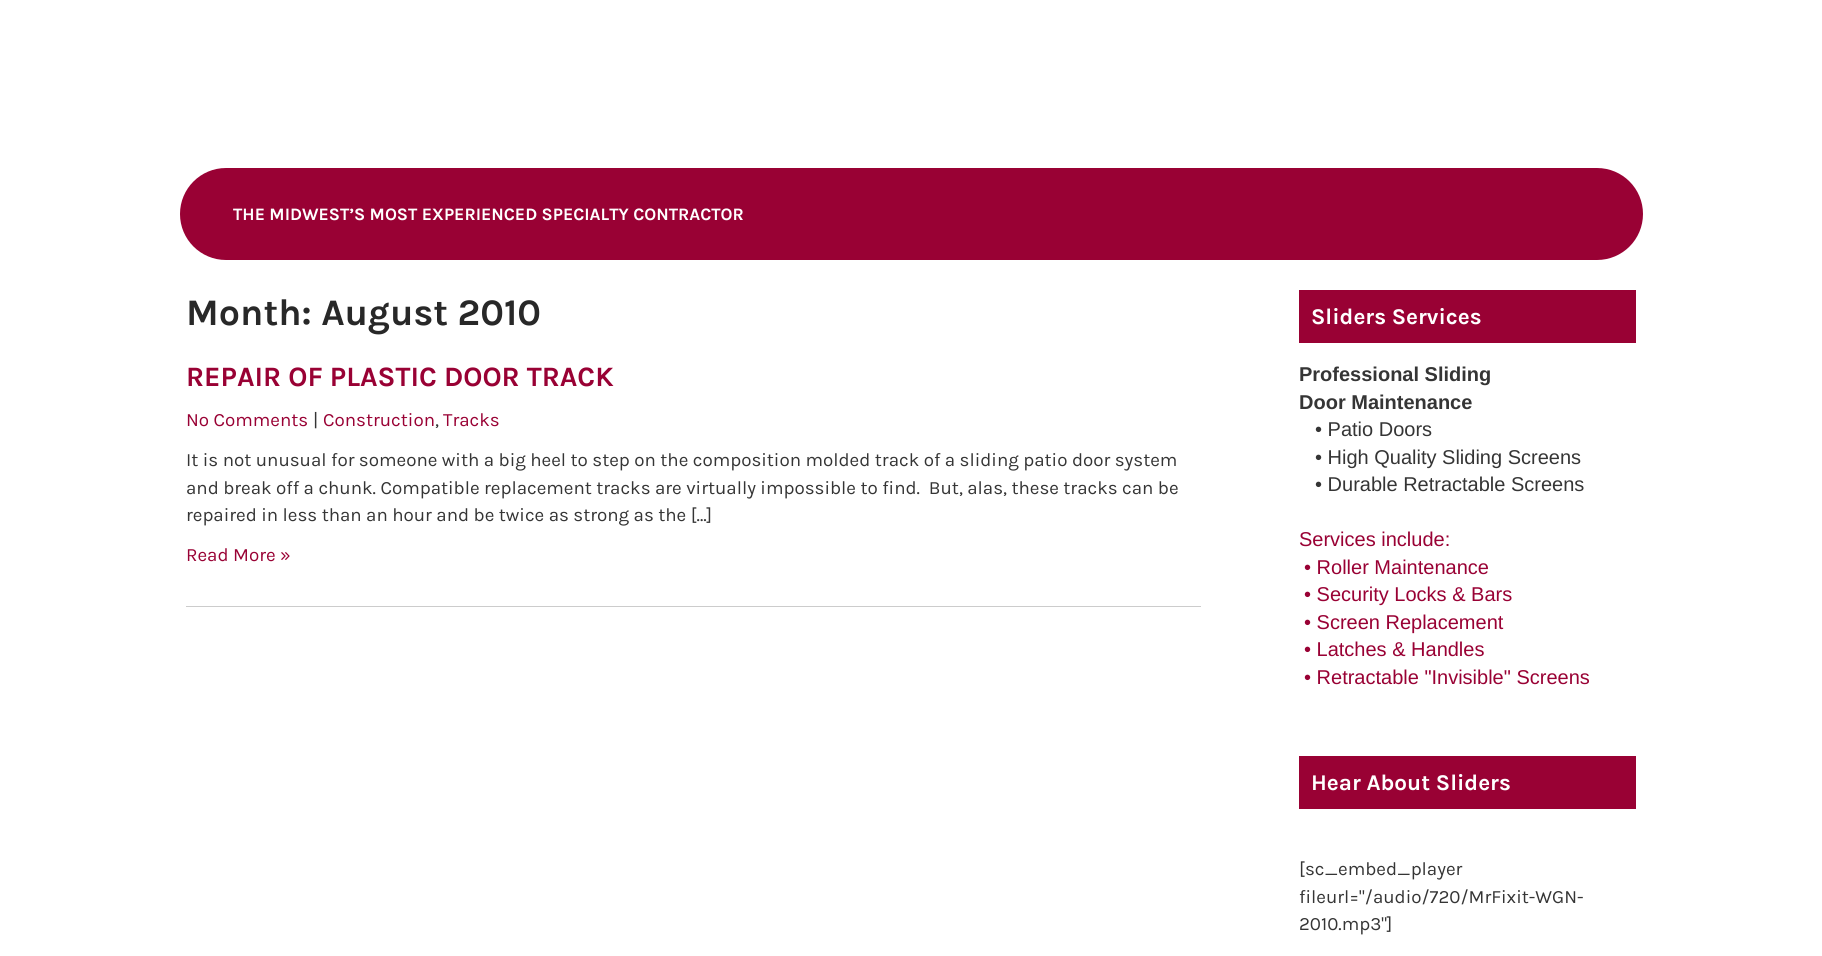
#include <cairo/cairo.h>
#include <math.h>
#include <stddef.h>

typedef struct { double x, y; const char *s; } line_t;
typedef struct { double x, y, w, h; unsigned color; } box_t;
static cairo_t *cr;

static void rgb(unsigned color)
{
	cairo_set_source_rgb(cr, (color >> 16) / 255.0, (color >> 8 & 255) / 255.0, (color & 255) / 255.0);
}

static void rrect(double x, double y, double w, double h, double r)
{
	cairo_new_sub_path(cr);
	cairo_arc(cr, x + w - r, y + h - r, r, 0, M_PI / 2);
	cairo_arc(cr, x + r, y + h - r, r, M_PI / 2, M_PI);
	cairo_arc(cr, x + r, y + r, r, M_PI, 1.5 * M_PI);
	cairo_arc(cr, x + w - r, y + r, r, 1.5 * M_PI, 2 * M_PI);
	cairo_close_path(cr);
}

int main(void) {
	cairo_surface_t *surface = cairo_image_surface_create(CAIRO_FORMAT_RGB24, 1822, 956);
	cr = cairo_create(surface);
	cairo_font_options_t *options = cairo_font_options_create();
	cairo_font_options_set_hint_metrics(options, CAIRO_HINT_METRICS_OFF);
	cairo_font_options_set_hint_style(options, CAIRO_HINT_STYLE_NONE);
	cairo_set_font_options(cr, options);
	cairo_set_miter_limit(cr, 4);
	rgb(0xffffff);
	cairo_paint(cr);
	rgb(0x990134);
	rrect(180, 168, 1463, 92, 46);
	cairo_fill(cr);
	{
		static const box_t items[] = {
			{186, 606, 1015, 1, 0xcccccc},
			{1299, 290, 337, 53, 0x990134},
			{1299, 756, 337, 53, 0x990134},
		};
		for (size_t i = 0; i < sizeof items / sizeof *items; i++) {
			rgb(items[i].color);
			cairo_rectangle(cr, items[i].x, items[i].y, items[i].w, items[i].h);
			cairo_fill(cr);
		}
	}
	cairo_select_font_face(cr, "Karla", CAIRO_FONT_SLANT_NORMAL, CAIRO_FONT_WEIGHT_BOLD);
	cairo_set_font_size(cr, 17.5);
	rgb(0xffffff);
	cairo_move_to(cr, 233, 220);
	cairo_show_text(cr, "THE MIDWEST’S MOST EXPERIENCED SPECIALTY CONTRACTOR");
	cairo_set_font_size(cr, 37.5);
	rgb(0x282828);
	cairo_move_to(cr, 186, 325);
	cairo_show_text(cr, "Month: August 2010");
	cairo_set_font_size(cr, 28.1);
	rgb(0x990134);
	cairo_move_to(cr, 186, 386);
	cairo_show_text(cr, "REPAIR OF PLASTIC DOOR TRACK");
	cairo_select_font_face(cr, "Karla", CAIRO_FONT_SLANT_NORMAL, CAIRO_FONT_WEIGHT_NORMAL);
	cairo_set_font_size(cr, 18.75);
	cairo_move_to(cr, 186, 426);
	cairo_show_text(cr, "No Comments");
	rgb(0x353535);
	cairo_move_to(cr, 313, 426);
	cairo_show_text(cr, "|");
	rgb(0x990134);
	cairo_move_to(cr, 323, 426);
	cairo_show_text(cr, "Construction");
	rgb(0x353535);
	cairo_move_to(cr, 435, 426);
	cairo_show_text(cr, ",");
	rgb(0x990134);
	cairo_move_to(cr, 443, 426);
	cairo_show_text(cr, "Tracks");
	rgb(0x353535);
	{
		static const line_t items[] = {
			{186, 466, "It is not unusual for someone with a big heel to step on the composition molded track of a sliding patio door system"},
			{186, 494, "and break off a chunk. Compatible replacement tracks are virtually impossible to find.  But, alas, these tracks can be"},
			{186, 521, "repaired in less than an hour and be twice as strong as the […]"},
		};
		for (size_t i = 0; i < sizeof items / sizeof *items; i++) {
			cairo_move_to(cr, items[i].x, items[i].y);
			cairo_show_text(cr, items[i].s);
		}
	}
	rgb(0x990134);
	cairo_move_to(cr, 186, 561);
	cairo_show_text(cr, "Read More »");
	cairo_select_font_face(cr, "Karla", CAIRO_FONT_SLANT_NORMAL, CAIRO_FONT_WEIGHT_BOLD);
	cairo_set_font_size(cr, 22.5);
	rgb(0xffffff);
	cairo_move_to(cr, 1311, 324);
	cairo_show_text(cr, "Sliders Services");
	cairo_select_font_face(cr, "Liberation Sans", CAIRO_FONT_SLANT_NORMAL, CAIRO_FONT_WEIGHT_BOLD);
	cairo_set_font_size(cr, 20);
	rgb(0x353535);
	cairo_move_to(cr, 1299, 381);
	cairo_show_text(cr, "Professional Sliding");
	cairo_move_to(cr, 1299, 409);
	cairo_show_text(cr, "Door Maintenance");
	cairo_select_font_face(cr, "Liberation Sans", CAIRO_FONT_SLANT_NORMAL, CAIRO_FONT_WEIGHT_NORMAL);
	{
		static const line_t items[] = {
			{1315, 436, "• Patio Doors"},
			{1315, 464, "• High Quality Sliding Screens"},
			{1315, 491, "• Durable Retractable Screens"},
		};
		for (size_t i = 0; i < sizeof items / sizeof *items; i++) {
			cairo_move_to(cr, items[i].x, items[i].y);
			cairo_show_text(cr, items[i].s);
		}
	}
	rgb(0x990134);
	{
		static const line_t items[] = {
			{1299, 546, "Services include:"},
			{1304, 574, "• Roller Maintenance"},
			{1304, 601, "• Security Locks & Bars"},
			{1304, 629, "• Screen Replacement"},
			{1304, 656, "• Latches & Handles"},
			{1304, 684, "• Retractable \"Invisible\" Screens"},
		};
		for (size_t i = 0; i < sizeof items / sizeof *items; i++) {
			cairo_move_to(cr, items[i].x, items[i].y);
			cairo_show_text(cr, items[i].s);
		}
	}
	cairo_select_font_face(cr, "Karla", CAIRO_FONT_SLANT_NORMAL, CAIRO_FONT_WEIGHT_BOLD);
	cairo_set_font_size(cr, 22.5);
	rgb(0xffffff);
	cairo_move_to(cr, 1311, 790);
	cairo_show_text(cr, "Hear About Sliders");
	cairo_select_font_face(cr, "Karla", CAIRO_FONT_SLANT_NORMAL, CAIRO_FONT_WEIGHT_NORMAL);
	cairo_set_font_size(cr, 18.75);
	rgb(0x353535);
	{
		static const line_t items[] = {
			{1299, 875, "[sc_embed_player"},
			{1299, 903, "fileurl=\"/audio/720/MrFixit-WGN-"},
			{1299, 930, "2010.mp3\"]"},
		};
		for (size_t i = 0; i < sizeof items / sizeof *items; i++) {
			cairo_move_to(cr, items[i].x, items[i].y);
			cairo_show_text(cr, items[i].s);
		}
	}
	cairo_surface_write_to_png(surface, "page.png");
	cairo_font_options_destroy(options);
	cairo_destroy(cr);
	cairo_surface_destroy(surface);
	return 0;
}
